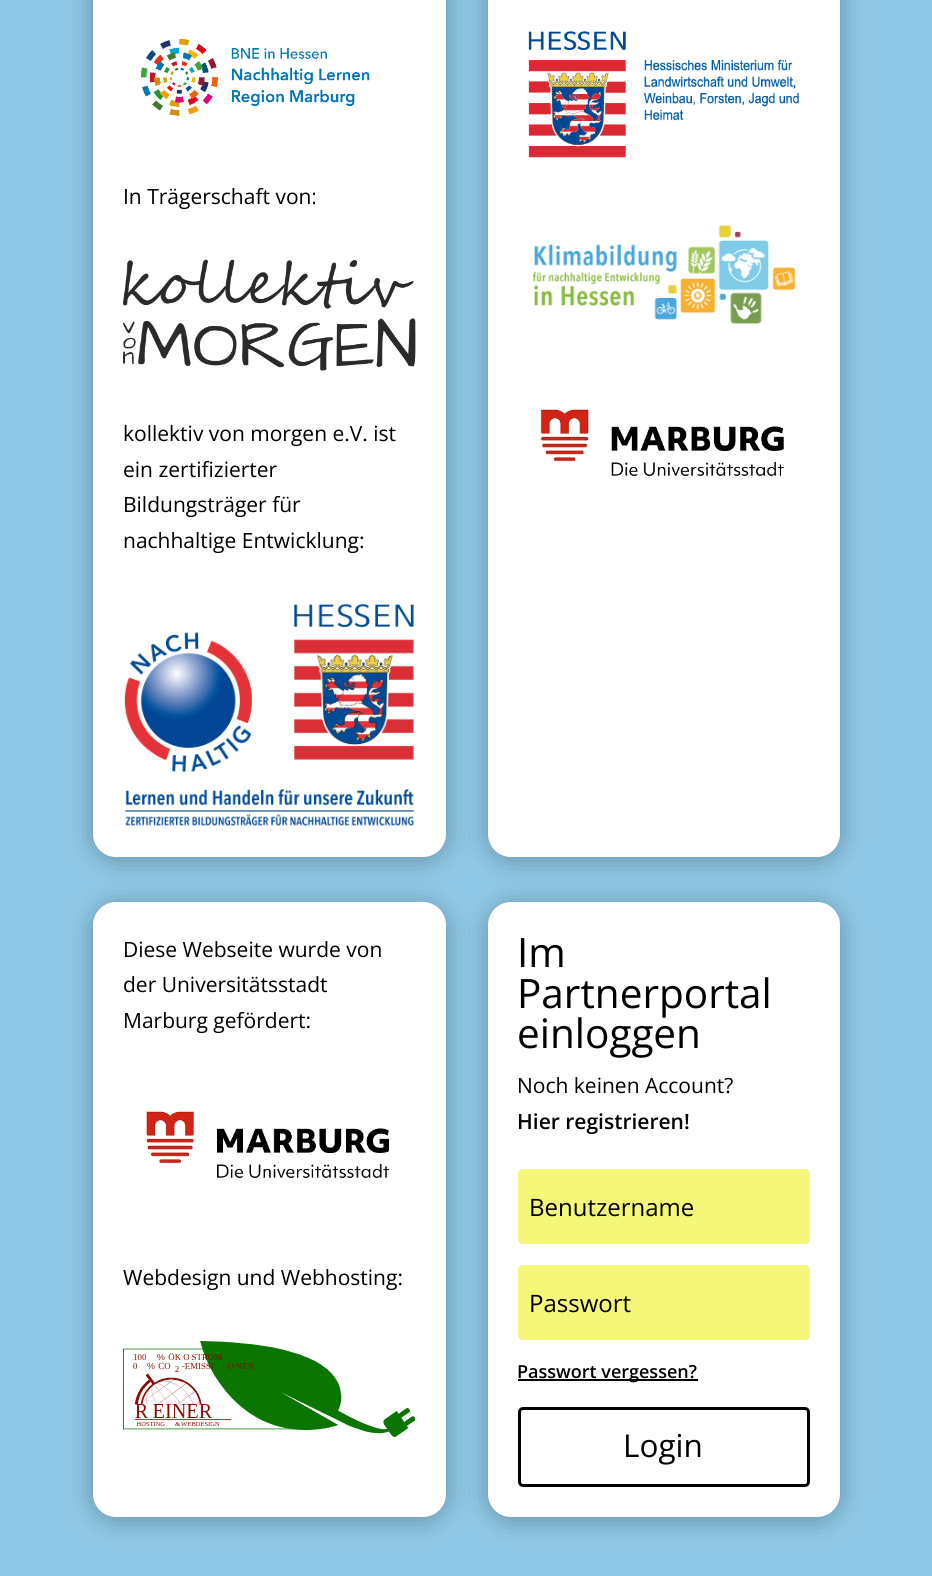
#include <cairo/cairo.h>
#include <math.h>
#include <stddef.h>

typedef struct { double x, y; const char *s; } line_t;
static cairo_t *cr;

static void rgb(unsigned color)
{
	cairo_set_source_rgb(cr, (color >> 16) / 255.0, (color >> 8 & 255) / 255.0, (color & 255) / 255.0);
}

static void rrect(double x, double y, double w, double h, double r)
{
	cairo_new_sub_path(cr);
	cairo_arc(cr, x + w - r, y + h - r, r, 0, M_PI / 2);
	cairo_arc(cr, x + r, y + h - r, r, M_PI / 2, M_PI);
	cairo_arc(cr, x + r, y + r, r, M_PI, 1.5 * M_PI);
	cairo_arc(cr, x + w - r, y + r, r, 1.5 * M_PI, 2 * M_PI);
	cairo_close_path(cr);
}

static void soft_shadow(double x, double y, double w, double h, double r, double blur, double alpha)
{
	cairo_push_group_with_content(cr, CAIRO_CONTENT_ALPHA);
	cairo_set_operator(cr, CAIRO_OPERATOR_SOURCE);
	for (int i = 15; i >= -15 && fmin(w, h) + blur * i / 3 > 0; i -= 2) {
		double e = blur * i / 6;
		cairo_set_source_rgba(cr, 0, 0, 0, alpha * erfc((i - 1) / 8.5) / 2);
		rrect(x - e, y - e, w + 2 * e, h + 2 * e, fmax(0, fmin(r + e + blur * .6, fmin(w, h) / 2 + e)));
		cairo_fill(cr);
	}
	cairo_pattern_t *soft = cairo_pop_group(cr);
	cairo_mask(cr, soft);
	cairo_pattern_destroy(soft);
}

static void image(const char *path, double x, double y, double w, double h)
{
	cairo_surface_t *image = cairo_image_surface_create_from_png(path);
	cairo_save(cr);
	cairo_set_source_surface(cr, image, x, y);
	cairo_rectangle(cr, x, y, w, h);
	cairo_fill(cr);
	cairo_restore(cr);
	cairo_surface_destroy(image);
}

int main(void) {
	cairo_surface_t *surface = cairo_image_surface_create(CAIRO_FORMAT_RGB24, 932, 1576);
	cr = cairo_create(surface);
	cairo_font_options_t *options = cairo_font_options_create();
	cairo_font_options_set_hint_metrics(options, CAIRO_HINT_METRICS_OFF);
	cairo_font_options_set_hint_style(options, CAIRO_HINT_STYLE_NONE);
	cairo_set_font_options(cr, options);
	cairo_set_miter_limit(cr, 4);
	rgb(0x90c9e7);
	cairo_paint(cr);
	rgb(0x000000);
	soft_shadow(93, -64, 353, 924, 23, 13.5, 0.3);
	rgb(0xffffff);
	rrect(93, -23, 353, 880, 23);
	cairo_fill(cr);
	image("img/1.png", 141, 38, 229, 78);
	image("img/2.png", 123, 259, 293, 112);
	image("img/3.png", 124, 604, 290, 222);
	rgb(0x000000);
	soft_shadow(488, -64, 352, 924, 23, 13.5, 0.3);
	rgb(0xffffff);
	rrect(488, -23, 352, 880, 23);
	cairo_fill(cr);
	image("img/4.png", 528, 31, 271, 127);
	image("img/5.png", 532, 224, 264, 101);
	image("img/6.png", 540, 408, 244, 69);
	rgb(0x000000);
	soft_shadow(93, 905, 353, 615, 23, 13.5, 0.3);
	rgb(0xffffff);
	rrect(93, 902, 353, 615, 23);
	cairo_fill(cr);
	image("img/7.png", 145, 1110, 244, 69);
	image("img/8.png", 123, 1341, 293, 96);
	rgb(0x000000);
	soft_shadow(488, 905, 352, 615, 23, 13.5, 0.3);
	rgb(0xffffff);
	rrect(488, 902, 352, 615, 23);
	cairo_fill(cr);
	rgb(0xf5f778);
	rrect(518, 1169, 292, 75, 5);
	cairo_fill(cr);
	rrect(518, 1265, 292, 75, 5);
	cairo_fill(cr);
	rgb(0x000000);
	cairo_rectangle(cr, 518, 1379, 180, 2);
	cairo_fill(cr);
	rrect(519.5, 1408.5, 289, 77, 3.5);
	cairo_set_line_width(cr, 3);
	cairo_stroke(cr);
	cairo_select_font_face(cr, "Open Sans", CAIRO_FONT_SLANT_NORMAL, CAIRO_FONT_WEIGHT_NORMAL);
	cairo_set_font_size(cr, 21);
	{
		static const line_t items[] = {
			{123, 204, "In Trägerschaft von:"},
			{123, 441, "kollektiv von morgen e.V. ist"},
			{123, 477, "ein zertifizierter"},
			{123, 512, "Bildungsträger für"},
			{123, 548, "nachhaltige Entwicklung:"},
			{123, 957, "Diese Webseite wurde von"},
			{123, 992, "der Universitätsstadt"},
			{123, 1028, "Marburg gefördert:"},
			{123, 1285, "Webdesign und Webhosting:"},
		};
		for (size_t i = 0; i < sizeof items / sizeof *items; i++) {
			cairo_move_to(cr, items[i].x, items[i].y);
			cairo_show_text(cr, items[i].s);
		}
	}
	cairo_set_font_size(cr, 40.5);
	{
		static const line_t items[] = {
			{517, 967, "Im"},
			{517, 1008, "Partnerportal"},
			{517, 1048, "einloggen"},
		};
		for (size_t i = 0; i < sizeof items / sizeof *items; i++) {
			cairo_move_to(cr, items[i].x, items[i].y);
			cairo_show_text(cr, items[i].s);
		}
	}
	cairo_set_font_size(cr, 21);
	cairo_move_to(cr, 517, 1093);
	cairo_show_text(cr, "Noch keinen Account?");
	cairo_select_font_face(cr, "Open Sans SemiBold", CAIRO_FONT_SLANT_NORMAL, CAIRO_FONT_WEIGHT_NORMAL);
	cairo_move_to(cr, 517, 1129);
	cairo_show_text(cr, "Hier registrieren!");
	cairo_select_font_face(cr, "Open Sans", CAIRO_FONT_SLANT_NORMAL, CAIRO_FONT_WEIGHT_NORMAL);
	cairo_set_font_size(cr, 24);
	cairo_move_to(cr, 529, 1216);
	cairo_show_text(cr, "Benutzername");
	cairo_move_to(cr, 529, 1312);
	cairo_show_text(cr, "Passwort");
	cairo_select_font_face(cr, "Open Sans SemiBold", CAIRO_FONT_SLANT_NORMAL, CAIRO_FONT_WEIGHT_NORMAL);
	cairo_set_font_size(cr, 18);
	cairo_move_to(cr, 517, 1378);
	cairo_show_text(cr, "Passwort vergessen?");
	cairo_select_font_face(cr, "Open Sans", CAIRO_FONT_SLANT_NORMAL, CAIRO_FONT_WEIGHT_NORMAL);
	cairo_set_font_size(cr, 31.5);
	cairo_move_to(cr, 623, 1457);
	cairo_show_text(cr, "Login");
	cairo_surface_write_to_png(surface, "page.png");
	cairo_font_options_destroy(options);
	cairo_destroy(cr);
	cairo_surface_destroy(surface);
	return 0;
}
